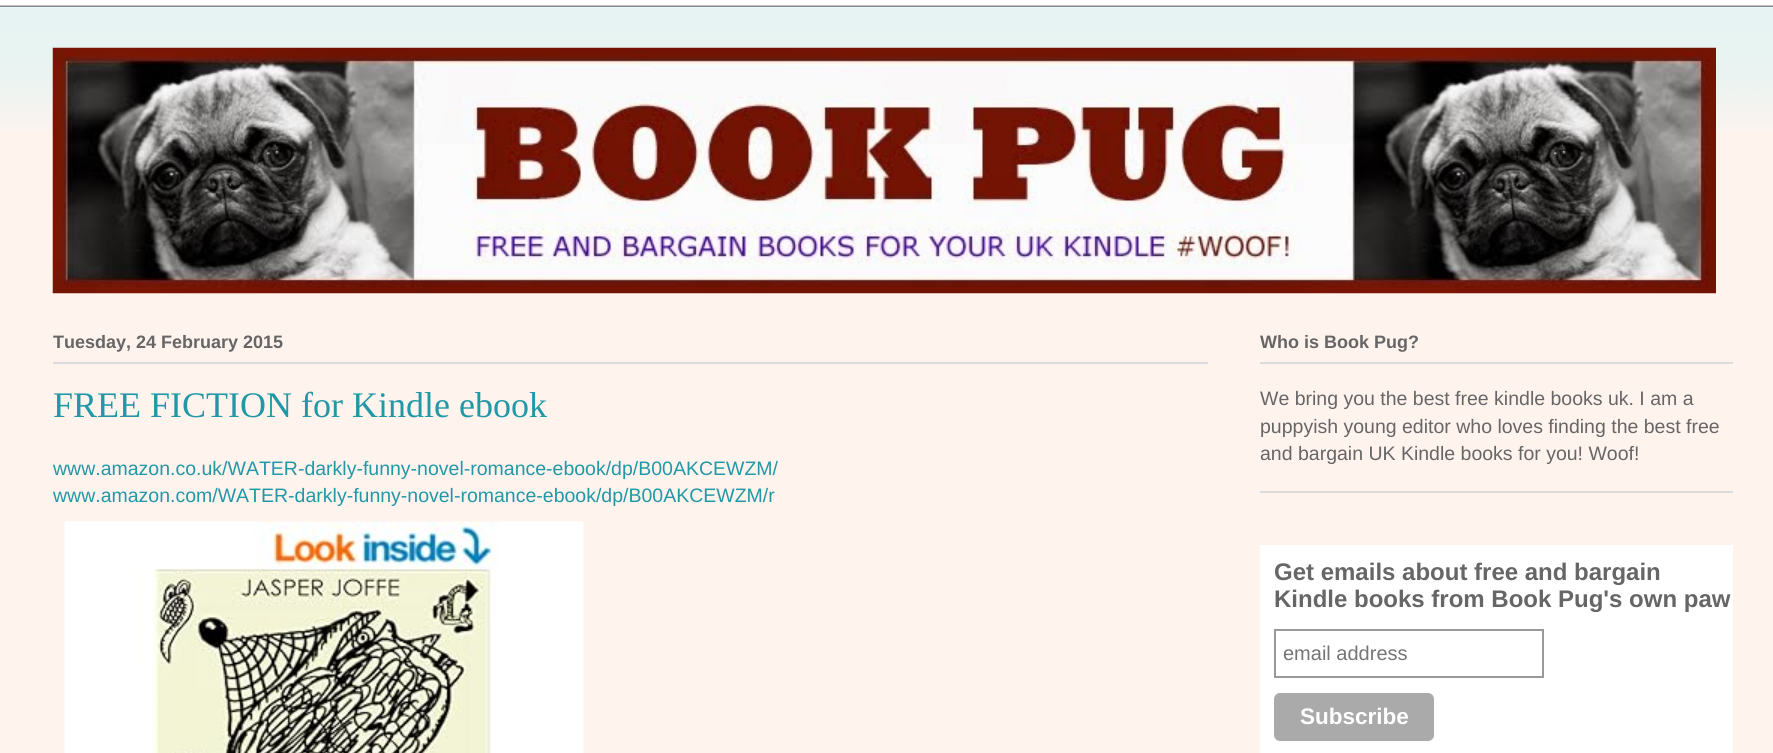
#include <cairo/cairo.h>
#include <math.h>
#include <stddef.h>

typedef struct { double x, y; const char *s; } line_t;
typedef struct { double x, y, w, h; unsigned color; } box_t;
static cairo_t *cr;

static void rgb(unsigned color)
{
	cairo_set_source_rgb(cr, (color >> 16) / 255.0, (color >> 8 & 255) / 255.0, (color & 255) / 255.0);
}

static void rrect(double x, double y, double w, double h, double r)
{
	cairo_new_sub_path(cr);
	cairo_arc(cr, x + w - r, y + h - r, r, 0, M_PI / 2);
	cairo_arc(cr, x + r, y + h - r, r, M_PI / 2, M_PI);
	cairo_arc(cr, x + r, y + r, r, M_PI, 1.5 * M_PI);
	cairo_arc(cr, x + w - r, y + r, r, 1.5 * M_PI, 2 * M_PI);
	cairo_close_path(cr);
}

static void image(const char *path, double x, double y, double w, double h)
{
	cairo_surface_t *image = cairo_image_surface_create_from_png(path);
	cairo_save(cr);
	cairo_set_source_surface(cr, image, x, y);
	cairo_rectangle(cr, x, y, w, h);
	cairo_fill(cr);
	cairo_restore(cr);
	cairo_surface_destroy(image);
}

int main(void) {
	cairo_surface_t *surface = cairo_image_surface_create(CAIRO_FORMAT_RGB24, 1773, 753);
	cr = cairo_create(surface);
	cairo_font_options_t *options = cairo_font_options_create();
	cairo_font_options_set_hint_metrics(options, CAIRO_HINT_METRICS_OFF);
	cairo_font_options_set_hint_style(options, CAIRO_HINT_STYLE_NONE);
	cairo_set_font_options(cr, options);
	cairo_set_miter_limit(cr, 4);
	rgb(0xffffff);
	cairo_paint(cr);
	image("img/1.png", 0, 5, 1773, 2);
	rgb(0xfff3ee);
	cairo_rectangle(cr, 0, 8, 1773, 745);
	cairo_fill(cr);
	image("img/2.png", 0, 7, 1773, 126);
	image("img/3.png", 52, 47, 1664, 247);
	rgb(0xdbdbdb);
	cairo_rectangle(cr, 53, 362, 1155, 2);
	cairo_fill(cr);
	image("img/4.png", 64, 521, 520, 232);
	{
		static const box_t items[] = {
			{1260, 491, 473, 2, 0xdbdbdb},
			{1260, 362, 473, 2, 0xdbdbdb},
			{1260, 545, 473, 208, 0xffffff},
		};
		for (size_t i = 0; i < sizeof items / sizeof *items; i++) {
			rgb(items[i].color);
			cairo_rectangle(cr, items[i].x, items[i].y, items[i].w, items[i].h);
			cairo_fill(cr);
		}
	}
	cairo_rectangle(cr, 1275, 630, 268, 47);
	rgb(0x999999);
	cairo_stroke(cr);
	rgb(0xaaaaaa);
	rrect(1274, 693, 160, 48, 6);
	cairo_fill(cr);
	cairo_select_font_face(cr, "Liberation Sans", CAIRO_FONT_SLANT_NORMAL, CAIRO_FONT_WEIGHT_BOLD);
	cairo_set_font_size(cr, 18);
	rgb(0x666666);
	cairo_move_to(cr, 53, 348);
	cairo_show_text(cr, "Tuesday, 24 February 2015");
	cairo_select_font_face(cr, "Liberation Serif", CAIRO_FONT_SLANT_NORMAL, CAIRO_FONT_WEIGHT_NORMAL);
	cairo_set_font_size(cr, 36);
	rgb(0x2198a6);
	cairo_move_to(cr, 53, 417);
	cairo_show_text(cr, "FREE FICTION for Kindle ebook");
	cairo_select_font_face(cr, "Liberation Sans", CAIRO_FONT_SLANT_NORMAL, CAIRO_FONT_WEIGHT_NORMAL);
	cairo_set_font_size(cr, 19.5);
	cairo_move_to(cr, 53, 475);
	cairo_show_text(cr, "www.amazon.co.uk/WATER-darkly-funny-novel-romance-ebook/dp/B00AKCEWZM/");
	cairo_move_to(cr, 53, 502);
	cairo_show_text(cr, "www.amazon.com/WATER-darkly-funny-novel-romance-ebook/dp/B00AKCEWZM/r");
	cairo_select_font_face(cr, "Liberation Sans", CAIRO_FONT_SLANT_NORMAL, CAIRO_FONT_WEIGHT_BOLD);
	cairo_set_font_size(cr, 18);
	rgb(0x666666);
	cairo_move_to(cr, 1260, 348);
	cairo_show_text(cr, "Who is Book Pug?");
	cairo_select_font_face(cr, "Liberation Sans", CAIRO_FONT_SLANT_NORMAL, CAIRO_FONT_WEIGHT_NORMAL);
	cairo_set_font_size(cr, 19.5);
	{
		static const line_t items[] = {
			{1260, 405, "We bring you the best free kindle books uk. I am a"},
			{1260, 433, "puppyish young editor who loves finding the best free"},
			{1260, 460, "and bargain UK Kindle books for you! Woof!"},
		};
		for (size_t i = 0; i < sizeof items / sizeof *items; i++) {
			cairo_move_to(cr, items[i].x, items[i].y);
			cairo_show_text(cr, items[i].s);
		}
	}
	cairo_select_font_face(cr, "Liberation Sans", CAIRO_FONT_SLANT_NORMAL, CAIRO_FONT_WEIGHT_BOLD);
	cairo_set_font_size(cr, 24);
	cairo_move_to(cr, 1274, 580);
	cairo_show_text(cr, "Get emails about free and bargain");
	cairo_move_to(cr, 1274, 607);
	cairo_show_text(cr, "Kindle books from Book Pug's own paw");
	cairo_select_font_face(cr, "Liberation Sans", CAIRO_FONT_SLANT_NORMAL, CAIRO_FONT_WEIGHT_NORMAL);
	cairo_set_font_size(cr, 20);
	rgb(0x757575);
	cairo_move_to(cr, 1283, 660);
	cairo_show_text(cr, "email address");
	cairo_select_font_face(cr, "Liberation Sans", CAIRO_FONT_SLANT_NORMAL, CAIRO_FONT_WEIGHT_BOLD);
	cairo_set_font_size(cr, 22.5);
	rgb(0xffffff);
	cairo_move_to(cr, 1300, 724);
	cairo_show_text(cr, "Subscribe");
	cairo_surface_write_to_png(surface, "page.png");
	cairo_font_options_destroy(options);
	cairo_destroy(cr);
	cairo_surface_destroy(surface);
	return 0;
}
